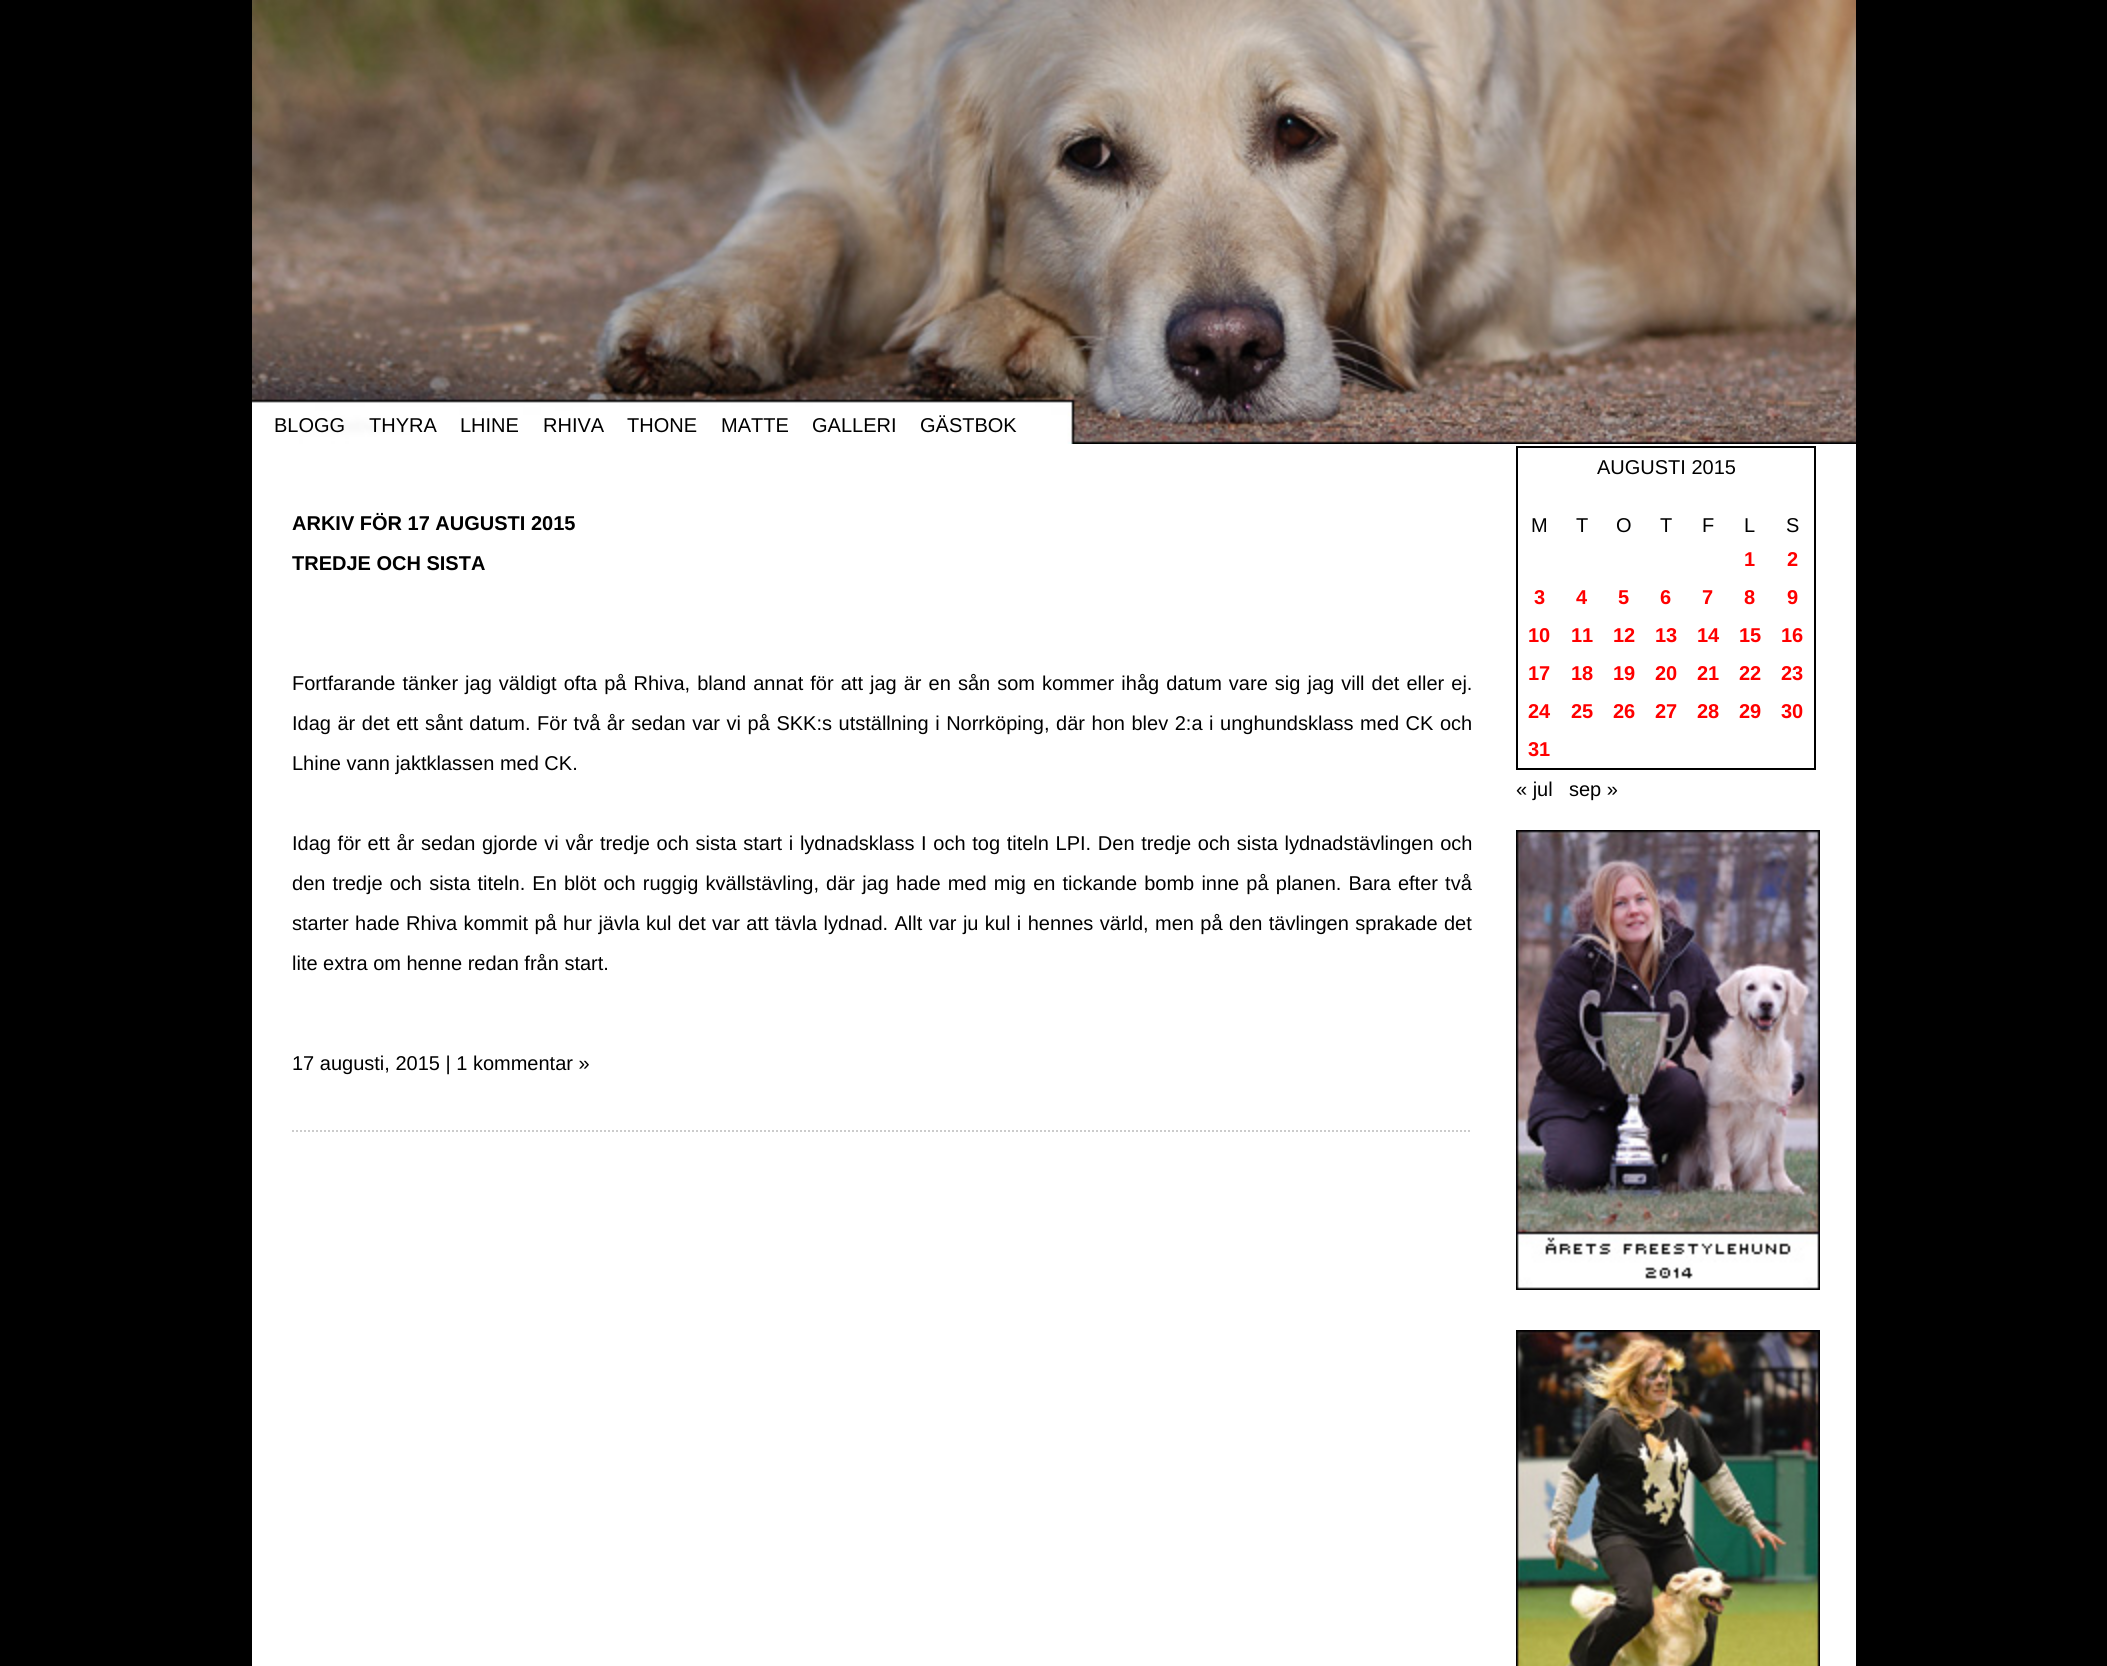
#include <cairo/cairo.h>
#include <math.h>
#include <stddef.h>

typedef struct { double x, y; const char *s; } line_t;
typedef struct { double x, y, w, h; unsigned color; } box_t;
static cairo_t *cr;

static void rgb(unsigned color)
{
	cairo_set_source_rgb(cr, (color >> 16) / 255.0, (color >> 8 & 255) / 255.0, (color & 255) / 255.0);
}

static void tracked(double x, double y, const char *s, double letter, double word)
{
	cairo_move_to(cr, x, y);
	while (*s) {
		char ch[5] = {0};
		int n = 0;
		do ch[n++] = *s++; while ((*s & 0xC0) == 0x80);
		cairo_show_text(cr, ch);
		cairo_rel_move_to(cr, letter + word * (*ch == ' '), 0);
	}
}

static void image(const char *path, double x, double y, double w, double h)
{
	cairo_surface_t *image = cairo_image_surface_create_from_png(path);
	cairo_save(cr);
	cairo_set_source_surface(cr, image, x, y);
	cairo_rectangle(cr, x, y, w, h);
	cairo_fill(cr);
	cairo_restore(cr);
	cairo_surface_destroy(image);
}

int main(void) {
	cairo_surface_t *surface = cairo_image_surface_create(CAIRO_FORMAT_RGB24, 2107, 1666);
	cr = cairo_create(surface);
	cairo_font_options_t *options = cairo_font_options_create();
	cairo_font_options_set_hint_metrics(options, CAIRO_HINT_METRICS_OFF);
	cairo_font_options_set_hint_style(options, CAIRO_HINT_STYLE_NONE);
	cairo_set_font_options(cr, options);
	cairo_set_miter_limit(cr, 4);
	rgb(0x000000);
	cairo_paint(cr);
	rgb(0xffffff);
	cairo_rectangle(cr, 252, 444, 1604, 1222);
	cairo_fill(cr);
	image("img/1.png", 252, 0, 1604, 444);
	cairo_new_path(cr);
	cairo_move_to(cr, 292, 1131);
	cairo_line_to(cr, 1472, 1131);
	rgb(0xcccccc);
	cairo_set_dash(cr, (double[]){2, 2}, 2, 0);
	cairo_stroke(cr);
	{
		static const box_t items[] = {
			{1516, 446, 300, 2, 0x000000},
			{1814, 446, 2, 324, 0x000000},
			{1516, 768, 300, 2, 0x000000},
			{1516, 446, 2, 324, 0x000000},
		};
		for (size_t i = 0; i < sizeof items / sizeof *items; i++) {
			rgb(items[i].color);
			cairo_rectangle(cr, items[i].x, items[i].y, items[i].w, items[i].h);
			cairo_fill(cr);
		}
	}
	image("img/2.png", 1516, 830, 304, 460);
	image("img/3.png", 1516, 1330, 304, 336);
	cairo_select_font_face(cr, "Liberation Sans", CAIRO_FONT_SLANT_NORMAL, CAIRO_FONT_WEIGHT_NORMAL);
	cairo_set_font_size(cr, 20);
	{
		static const line_t items[] = {
			{274, 432, "BLOGG"},
			{369, 432, "THYRA"},
			{460, 432, "LHINE"},
			{543, 432, "RHIVA"},
			{627, 432, "THONE"},
			{721, 432, "MATTE"},
			{812, 432, "GALLERI"},
			{920, 432, "GÄSTBOK"},
		};
		for (size_t i = 0; i < sizeof items / sizeof *items; i++) {
			cairo_move_to(cr, items[i].x, items[i].y);
			cairo_show_text(cr, items[i].s);
		}
	}
	cairo_select_font_face(cr, "Liberation Sans", CAIRO_FONT_SLANT_NORMAL, CAIRO_FONT_WEIGHT_BOLD);
	cairo_move_to(cr, 292, 530);
	cairo_show_text(cr, "ARKIV FÖR 17 AUGUSTI 2015");
	cairo_move_to(cr, 292, 570);
	cairo_show_text(cr, "TREDJE OCH SISTA");
	cairo_select_font_face(cr, "Liberation Sans", CAIRO_FONT_SLANT_NORMAL, CAIRO_FONT_WEIGHT_NORMAL);
	tracked(292, 690, "Fortfarande tänker jag väldigt ofta på Rhiva, bland annat för att jag är en sån som kommer ihåg datum vare sig jag vill det eller ej.", 0, 1.5);
	tracked(292, 730, "Idag är det ett sånt datum. För två år sedan var vi på SKK:s utställning i Norrköping, där hon blev 2:a i unghundsklass med CK och", 0, 1);
	cairo_move_to(cr, 292, 770);
	cairo_show_text(cr, "Lhine vann jaktklassen med CK.");
	tracked(292, 850, "Idag för ett år sedan gjorde vi vår tredje och sista start i lydnadsklass I och tog titeln LPI. Den tredje och sista lydnadstävlingen och", 0, 1.1);
	tracked(292, 890, "den tredje och sista titeln. En blöt och ruggig kvällstävling, där jag hade med mig en tickande bomb inne på planen. Bara efter två", 0, 1.6);
	tracked(292, 930, "starter hade Rhiva kommit på hur jävla kul det var att tävla lydnad. Allt var ju kul i hennes värld, men på den tävlingen sprakade det", 0, 0.85);
	{
		static const line_t items[] = {
			{292, 970, "lite extra om henne redan från start."},
			{292, 1070, "17 augusti, 2015 | 1 kommentar »"},
			{1597, 474, "AUGUSTI 2015"},
			{1531, 532, "M"},
			{1576, 532, "T"},
			{1616, 532, "O"},
			{1660, 532, "T"},
			{1702, 532, "F"},
			{1744, 532, "L"},
			{1786, 532, "S"},
		};
		for (size_t i = 0; i < sizeof items / sizeof *items; i++) {
			cairo_move_to(cr, items[i].x, items[i].y);
			cairo_show_text(cr, items[i].s);
		}
	}
	cairo_select_font_face(cr, "Liberation Sans", CAIRO_FONT_SLANT_NORMAL, CAIRO_FONT_WEIGHT_BOLD);
	rgb(0xff0000);
	{
		static const line_t items[] = {
			{1744, 566, "1"},
			{1787, 566, "2"},
			{1534, 604, "3"},
			{1576, 604, "4"},
			{1618, 604, "5"},
			{1660, 604, "6"},
			{1702, 604, "7"},
			{1744, 604, "8"},
			{1787, 604, "9"},
			{1528, 642, "10"},
			{1571, 642, "11"},
			{1613, 642, "12"},
			{1655, 642, "13"},
			{1697, 642, "14"},
			{1739, 642, "15"},
			{1781, 642, "16"},
			{1528, 680, "17"},
			{1571, 680, "18"},
			{1613, 680, "19"},
			{1655, 680, "20"},
			{1697, 680, "21"},
			{1739, 680, "22"},
			{1781, 680, "23"},
			{1528, 718, "24"},
			{1571, 718, "25"},
			{1613, 718, "26"},
			{1655, 718, "27"},
			{1697, 718, "28"},
			{1739, 718, "29"},
			{1781, 718, "30"},
			{1528, 756, "31"},
		};
		for (size_t i = 0; i < sizeof items / sizeof *items; i++) {
			cairo_move_to(cr, items[i].x, items[i].y);
			cairo_show_text(cr, items[i].s);
		}
	}
	cairo_select_font_face(cr, "Liberation Sans", CAIRO_FONT_SLANT_NORMAL, CAIRO_FONT_WEIGHT_NORMAL);
	rgb(0x000000);
	cairo_move_to(cr, 1516, 796);
	cairo_show_text(cr, "« jul");
	cairo_move_to(cr, 1569, 796);
	cairo_show_text(cr, "sep »");
	cairo_surface_write_to_png(surface, "page.png");
	cairo_font_options_destroy(options);
	cairo_destroy(cr);
	cairo_surface_destroy(surface);
	return 0;
}
